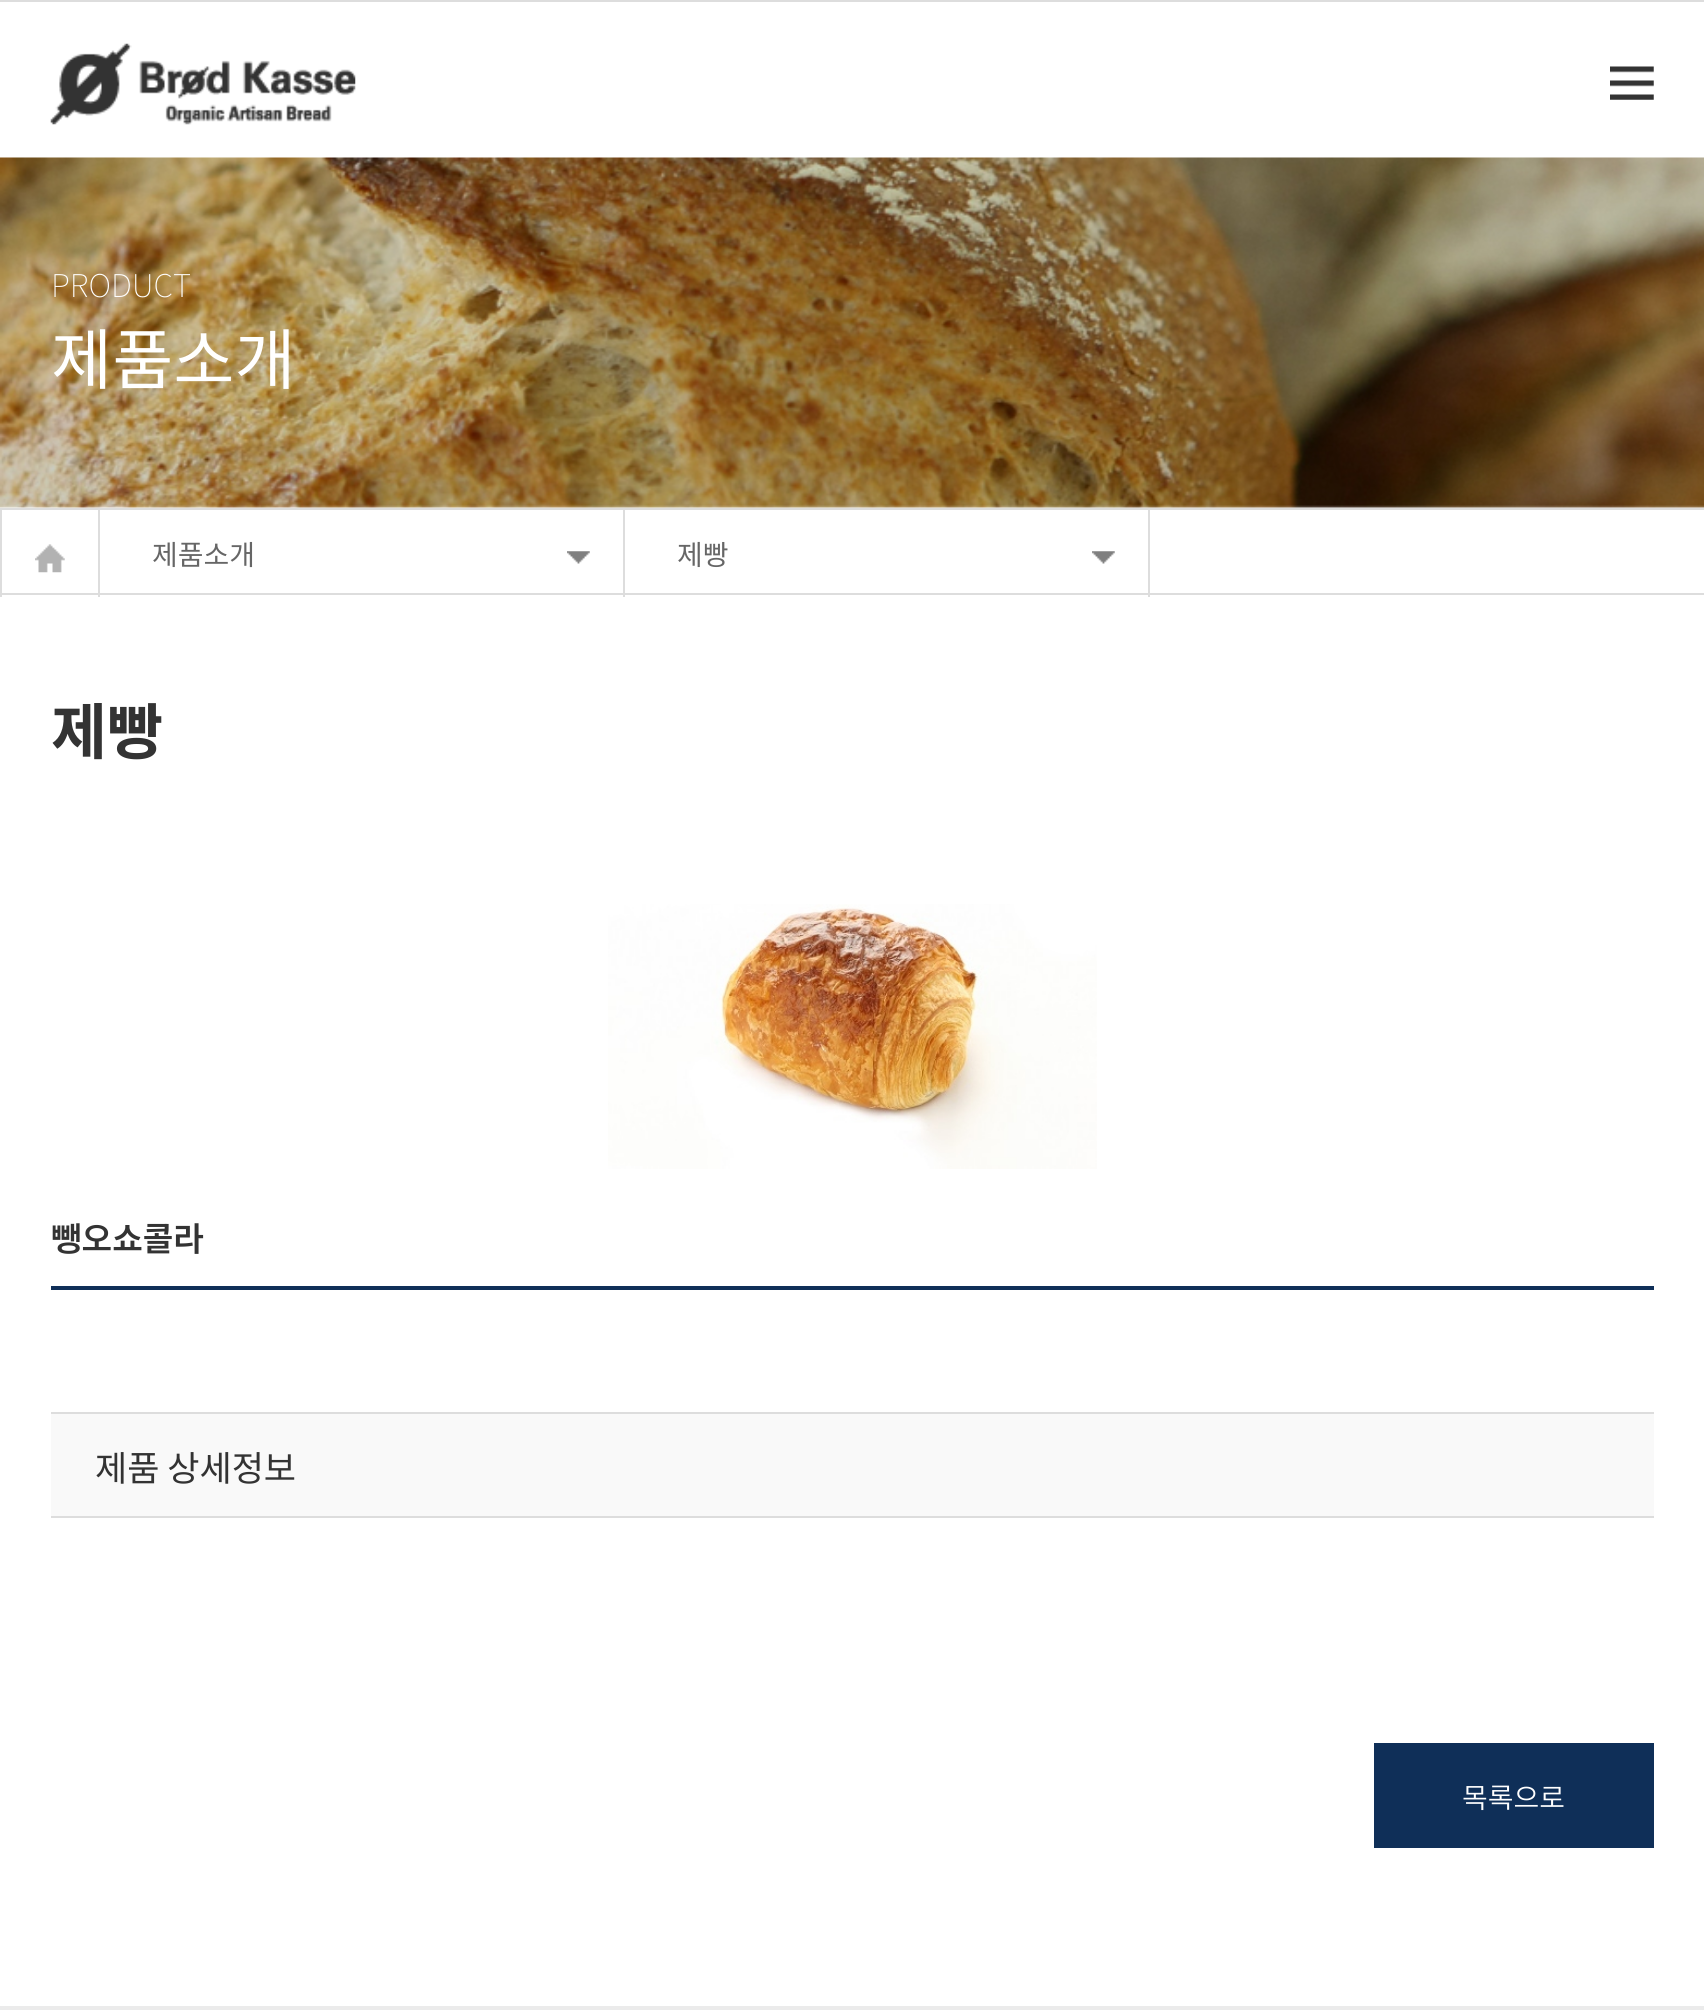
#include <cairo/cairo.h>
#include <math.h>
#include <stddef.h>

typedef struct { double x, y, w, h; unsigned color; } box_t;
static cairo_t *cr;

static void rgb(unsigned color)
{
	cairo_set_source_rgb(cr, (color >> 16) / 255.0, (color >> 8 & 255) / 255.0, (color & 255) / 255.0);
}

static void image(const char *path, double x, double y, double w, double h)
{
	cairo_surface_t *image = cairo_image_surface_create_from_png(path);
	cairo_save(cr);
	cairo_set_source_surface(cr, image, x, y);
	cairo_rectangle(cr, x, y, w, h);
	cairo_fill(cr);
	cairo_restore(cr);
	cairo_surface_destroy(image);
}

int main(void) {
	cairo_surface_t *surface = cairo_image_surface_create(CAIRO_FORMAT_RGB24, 1704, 2010);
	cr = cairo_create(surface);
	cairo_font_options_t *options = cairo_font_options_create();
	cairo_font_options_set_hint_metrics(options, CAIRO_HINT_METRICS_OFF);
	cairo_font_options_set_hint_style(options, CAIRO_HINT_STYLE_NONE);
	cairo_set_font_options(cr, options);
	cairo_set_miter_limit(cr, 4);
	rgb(0xffffff);
	cairo_paint(cr);
	rgb(0xdddddd);
	cairo_rectangle(cr, 0, 0, 1704, 2);
	cairo_fill(cr);
	image("img/1.png", 50, 43, 306, 82);
	image("img/2.png", 1610, 66, 44, 34);
	image("img/3.png", 0, 157, 1704, 351);
	{
		static const box_t items[] = {
			{0, 508, 1704, 2, 0xdddddd},
			{0, 593, 1704, 2, 0xdddddd},
			{0, 509, 2, 88, 0xdddddd},
		};
		for (size_t i = 0; i < sizeof items / sizeof *items; i++) {
			rgb(items[i].color);
			cairo_rectangle(cr, items[i].x, items[i].y, items[i].w, items[i].h);
			cairo_fill(cr);
		}
	}
	image("img/4.png", 35, 544, 30, 29);
	cairo_rectangle(cr, 98, 509, 2, 88);
	cairo_fill(cr);
	image("img/5.png", 567, 551, 23, 13);
	cairo_rectangle(cr, 623, 509, 2, 88);
	cairo_fill(cr);
	image("img/5.png", 1092, 551, 23, 13);
	cairo_rectangle(cr, 1148, 509, 2, 88);
	cairo_fill(cr);
	image("img/6.png", 608, 904, 489, 265);
	{
		static const box_t items[] = {
			{51, 1286, 1603, 4, 0x0f2f58},
			{51, 1414, 1603, 102, 0xf9f9f9},
			{51, 1412, 1603, 2, 0xdddddd},
			{51, 1516, 1603, 2, 0xdddddd},
			{1374, 1743, 280, 105, 0x0f2f58},
			{0, 2006, 1704, 4, 0xebebeb},
		};
		for (size_t i = 0; i < sizeof items / sizeof *items; i++) {
			rgb(items[i].color);
			cairo_rectangle(cr, items[i].x, items[i].y, items[i].w, items[i].h);
			cairo_fill(cr);
		}
	}
	cairo_select_font_face(cr, "Noto Sans KR Thin", CAIRO_FONT_SLANT_NORMAL, CAIRO_FONT_WEIGHT_NORMAL);
	cairo_set_font_size(cr, 31.5);
	rgb(0xffffff);
	cairo_move_to(cr, 51, 297);
	cairo_show_text(cr, "PRODUCT");
	cairo_select_font_face(cr, "Noto Sans KR", CAIRO_FONT_SLANT_NORMAL, CAIRO_FONT_WEIGHT_NORMAL);
	cairo_set_font_size(cr, 66.5);
	cairo_move_to(cr, 51, 384);
	cairo_show_text(cr, "제품소개");
	cairo_set_font_size(cr, 28);
	rgb(0x666666);
	cairo_move_to(cr, 152, 565);
	cairo_show_text(cr, "제품소개");
	cairo_move_to(cr, 677, 565);
	cairo_show_text(cr, "제빵");
	cairo_select_font_face(cr, "Noto Sans KR", CAIRO_FONT_SLANT_NORMAL, CAIRO_FONT_WEIGHT_BOLD);
	cairo_set_font_size(cr, 61);
	rgb(0x333333);
	cairo_move_to(cr, 51, 754);
	cairo_show_text(cr, "제빵");
	cairo_select_font_face(cr, "Noto Sans KR SemiBold", CAIRO_FONT_SLANT_NORMAL, CAIRO_FONT_WEIGHT_NORMAL);
	cairo_set_font_size(cr, 33.25);
	cairo_move_to(cr, 51, 1251);
	cairo_show_text(cr, "뺑오쇼콜라");
	cairo_select_font_face(cr, "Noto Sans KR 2", CAIRO_FONT_SLANT_NORMAL, CAIRO_FONT_WEIGHT_NORMAL);
	cairo_set_font_size(cr, 35);
	cairo_move_to(cr, 95, 1481);
	cairo_show_text(cr, "제품 상세정보");
	cairo_select_font_face(cr, "Noto Sans KR Light", CAIRO_FONT_SLANT_NORMAL, CAIRO_FONT_WEIGHT_NORMAL);
	cairo_set_font_size(cr, 28);
	rgb(0xffffff);
	cairo_move_to(cr, 1462, 1808);
	cairo_show_text(cr, "목록으로");
	cairo_surface_write_to_png(surface, "page.png");
	cairo_font_options_destroy(options);
	cairo_destroy(cr);
	cairo_surface_destroy(surface);
	return 0;
}
